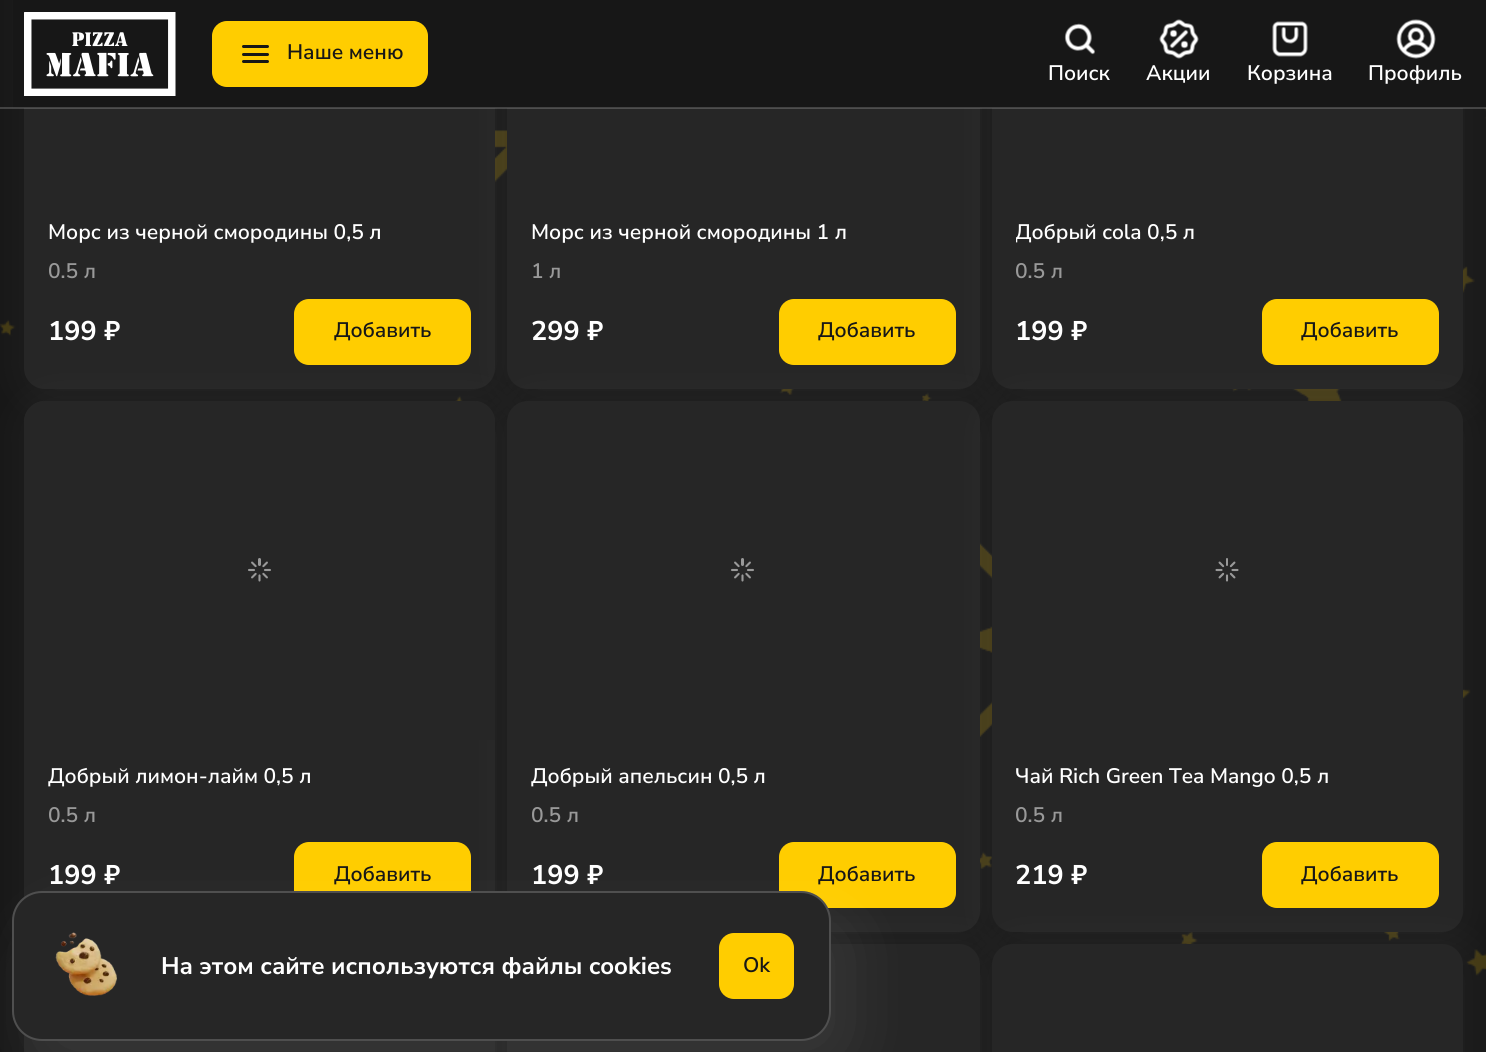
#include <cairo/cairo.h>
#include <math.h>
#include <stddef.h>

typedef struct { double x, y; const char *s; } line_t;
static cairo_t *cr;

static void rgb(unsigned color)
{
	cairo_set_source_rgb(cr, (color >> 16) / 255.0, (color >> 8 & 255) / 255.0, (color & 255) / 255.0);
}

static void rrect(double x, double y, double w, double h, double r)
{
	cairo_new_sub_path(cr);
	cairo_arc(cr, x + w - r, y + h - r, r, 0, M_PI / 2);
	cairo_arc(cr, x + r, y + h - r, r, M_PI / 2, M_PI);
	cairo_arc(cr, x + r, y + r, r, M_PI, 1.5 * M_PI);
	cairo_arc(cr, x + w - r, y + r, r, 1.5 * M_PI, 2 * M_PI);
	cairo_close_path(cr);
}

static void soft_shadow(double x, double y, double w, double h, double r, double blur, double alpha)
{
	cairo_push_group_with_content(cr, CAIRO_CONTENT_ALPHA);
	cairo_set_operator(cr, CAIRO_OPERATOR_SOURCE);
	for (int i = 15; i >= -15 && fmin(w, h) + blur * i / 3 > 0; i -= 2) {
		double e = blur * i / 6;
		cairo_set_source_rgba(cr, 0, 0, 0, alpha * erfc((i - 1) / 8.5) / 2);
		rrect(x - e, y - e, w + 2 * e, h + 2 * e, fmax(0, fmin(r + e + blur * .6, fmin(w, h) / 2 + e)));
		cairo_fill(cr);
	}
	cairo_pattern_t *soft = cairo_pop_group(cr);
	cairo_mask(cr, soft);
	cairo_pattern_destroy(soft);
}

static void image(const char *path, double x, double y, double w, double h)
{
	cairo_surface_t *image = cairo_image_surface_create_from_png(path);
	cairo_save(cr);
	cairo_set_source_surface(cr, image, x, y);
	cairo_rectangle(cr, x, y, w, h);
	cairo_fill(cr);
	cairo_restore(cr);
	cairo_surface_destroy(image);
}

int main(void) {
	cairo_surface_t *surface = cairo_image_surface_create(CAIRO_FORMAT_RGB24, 1486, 1052);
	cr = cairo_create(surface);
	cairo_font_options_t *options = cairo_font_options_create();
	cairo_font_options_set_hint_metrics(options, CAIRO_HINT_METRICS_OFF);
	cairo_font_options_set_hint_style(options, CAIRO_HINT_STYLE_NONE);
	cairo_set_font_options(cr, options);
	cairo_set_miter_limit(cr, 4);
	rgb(0x171717);
	cairo_paint(cr);
	image("img/1.png", 0, 108, 1486, 868);
	rgb(0xffffff);
	soft_shadow(30, -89, 471, 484, 21, 22.5, 0.05);
	rgb(0x262626);
	rrect(24, -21, 471, 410, 21);
	cairo_fill(cr);
	rgb(0xffffff);
	soft_shadow(513, -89, 473, 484, 21, 22.5, 0.05);
	rgb(0x262626);
	rrect(507, -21, 473, 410, 21);
	cairo_fill(cr);
	rgb(0xffffff);
	soft_shadow(998, -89, 471, 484, 21, 22.5, 0.05);
	rgb(0x262626);
	rrect(992, -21, 471, 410, 21);
	cairo_fill(cr);
	rgb(0x171717);
	cairo_rectangle(cr, 13, 0, 1473, 108);
	cairo_fill(cr);
	cairo_set_source_rgba(cr, 1, 1, 1, 0.19);
	cairo_rectangle(cr, 0, 107, 1486, 2);
	cairo_fill(cr);
	image("img/2.png", 24, 12, 152, 84);
	rgb(0xffcd00);
	rrect(212, 21, 216, 66, 15);
	cairo_fill(cr);
	rgb(0x171717);
	rrect(242, 45, 27, 3, 1.5);
	cairo_fill(cr);
	rrect(242, 53, 27, 3, 1.5);
	cairo_fill(cr);
	rrect(242, 60, 27, 3, 1.5);
	cairo_fill(cr);
	image("img/3.png", 1064, 23, 31, 32);
	image("img/4.png", 1159, 19, 40, 40);
	image("img/5.png", 1272, 21, 36, 36);
	image("img/6.png", 1396, 19, 40, 40);
	rgb(0xffffff);
	soft_shadow(30, 407, 471, 531, 21, 22.5, 0.05);
	rgb(0x262626);
	rrect(24, 401, 471, 531, 21);
	cairo_fill(cr);
	rgb(0xffffff);
	soft_shadow(513, 407, 473, 531, 21, 22.5, 0.05);
	rgb(0xffcd00);
	rrect(294, 299, 177, 66, 15);
	cairo_fill(cr);
	rgb(0x262626);
	rrect(507, 401, 473, 531, 21);
	cairo_fill(cr);
	rgb(0xffffff);
	soft_shadow(998, 407, 471, 531, 21, 22.5, 0.05);
	rgb(0xffcd00);
	rrect(779, 299, 177, 66, 15);
	cairo_fill(cr);
	rrect(1262, 299, 177, 66, 15);
	cairo_fill(cr);
	rgb(0x262626);
	cairo_new_path(cr);
	cairo_move_to(cr, 45, 401);
	cairo_line_to(cr, 474, 401);
	cairo_curve_to(cr, 485.5, 401, 495, 410.5, 495, 422);
	cairo_line_to(cr, 495, 740);
	cairo_line_to(cr, 24, 740);
	cairo_line_to(cr, 24, 422);
	cairo_curve_to(cr, 24, 410.5, 33.5, 401, 45, 401);
	cairo_close_path(cr);
	cairo_fill(cr);
	image("img/7.png", 248, 558, 23, 24);
	rgb(0xffffff);
	soft_shadow(30, 950, 471, 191, 21, 22.5, 0.05);
	rgb(0x262626);
	rrect(992, 401, 471, 531, 21);
	cairo_fill(cr);
	rgb(0xffffff);
	soft_shadow(513, 950, 473, 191, 21, 22.5, 0.05);
	rgb(0xffcd00);
	rrect(294, 842, 177, 66, 15);
	cairo_fill(cr);
	image("img/7.png", 731, 558, 23, 24);
	rgb(0xffffff);
	soft_shadow(998, 950, 471, 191, 21, 22.5, 0.05);
	rgb(0xffcd00);
	rrect(779, 842, 177, 66, 15);
	cairo_fill(cr);
	image("img/8.png", 1215, 558, 24, 24);
	rrect(1262, 842, 177, 66, 15);
	cairo_fill(cr);
	rgb(0x262626);
	cairo_rectangle(cr, 24, 1035, 471, 17);
	cairo_fill(cr);
	cairo_new_path(cr);
	cairo_move_to(cr, 528, 944);
	cairo_line_to(cr, 959, 944);
	cairo_curve_to(cr, 970.5, 944, 980, 953.5, 980, 965);
	cairo_line_to(cr, 980, 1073);
	cairo_line_to(cr, 507, 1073);
	cairo_line_to(cr, 507, 965);
	cairo_curve_to(cr, 507, 953.5, 516.5, 944, 528, 944);
	cairo_close_path(cr);
	cairo_fill(cr);
	cairo_new_path(cr);
	cairo_move_to(cr, 1013, 944);
	cairo_line_to(cr, 1442, 944);
	cairo_curve_to(cr, 1453.5, 944, 1463, 953.5, 1463, 965);
	cairo_line_to(cr, 1463, 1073);
	cairo_line_to(cr, 992, 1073);
	cairo_line_to(cr, 992, 965);
	cairo_curve_to(cr, 992, 953.5, 1001.5, 944, 1013, 944);
	cairo_close_path(cr);
	cairo_fill(cr);
	rgb(0xffffff);
	soft_shadow(32, 917, 819, 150, 30, 31.5, 0.08);
	rgb(0x262626);
	rrect(12, 891, 819, 150, 30);
	cairo_fill(cr);
	rrect(13, 892, 817, 148, 29);
	cairo_set_source_rgba(cr, 1, 1, 1, 0.19);
	cairo_stroke(cr);
	image("img/9.png", 55, 932, 62, 64);
	rgb(0xffcd00);
	rrect(719, 933, 75, 66, 15);
	cairo_fill(cr);
	cairo_select_font_face(cr, "Nunito Sans SemiBold", CAIRO_FONT_SLANT_NORMAL, CAIRO_FONT_WEIGHT_NORMAL);
	cairo_set_font_size(cr, 21);
	rgb(0x171717);
	cairo_move_to(cr, 287, 59);
	cairo_show_text(cr, "Наше меню");
	rgb(0xffffff);
	{
		static const line_t items[] = {
			{1048, 80, "Поиск"},
			{1146, 80, "Акции"},
			{1247, 80, "Корзина"},
			{1368, 80, "Профиль"},
			{48, 239, "Морс из черной смородины 0,5 л"},
		};
		for (size_t i = 0; i < sizeof items / sizeof *items; i++) {
			cairo_move_to(cr, items[i].x, items[i].y);
			cairo_show_text(cr, items[i].s);
		}
	}
	rgb(0x999999);
	cairo_move_to(cr, 48, 278);
	cairo_show_text(cr, "0.5 л");
	cairo_select_font_face(cr, "Nunito Sans", CAIRO_FONT_SLANT_NORMAL, CAIRO_FONT_WEIGHT_BOLD);
	cairo_set_font_size(cr, 27);
	rgb(0xffffff);
	cairo_move_to(cr, 48, 340);
	cairo_show_text(cr, "199 ₽");
	cairo_select_font_face(cr, "Nunito Sans SemiBold", CAIRO_FONT_SLANT_NORMAL, CAIRO_FONT_WEIGHT_NORMAL);
	cairo_set_font_size(cr, 21);
	rgb(0x171717);
	cairo_move_to(cr, 334, 337);
	cairo_show_text(cr, "Добавить");
	rgb(0xffffff);
	cairo_move_to(cr, 531, 239);
	cairo_show_text(cr, "Морс из черной смородины 1 л");
	rgb(0x999999);
	cairo_move_to(cr, 531, 278);
	cairo_show_text(cr, "1 л");
	cairo_select_font_face(cr, "Nunito Sans", CAIRO_FONT_SLANT_NORMAL, CAIRO_FONT_WEIGHT_BOLD);
	cairo_set_font_size(cr, 27);
	rgb(0xffffff);
	cairo_move_to(cr, 531, 340);
	cairo_show_text(cr, "299 ₽");
	cairo_select_font_face(cr, "Nunito Sans SemiBold", CAIRO_FONT_SLANT_NORMAL, CAIRO_FONT_WEIGHT_NORMAL);
	cairo_set_font_size(cr, 21);
	rgb(0x171717);
	cairo_move_to(cr, 818, 337);
	cairo_show_text(cr, "Добавить");
	cairo_save(cr);
	cairo_rectangle(cr, 1016, 221, 423, 27);
	cairo_clip(cr);
	rgb(0xffffff);
	cairo_move_to(cr, 1015, 239);
	cairo_show_text(cr, "Добрый cola 0,5 л");
	cairo_restore(cr);
	rgb(0x999999);
	cairo_move_to(cr, 1015, 278);
	cairo_show_text(cr, "0.5 л");
	cairo_select_font_face(cr, "Nunito Sans", CAIRO_FONT_SLANT_NORMAL, CAIRO_FONT_WEIGHT_BOLD);
	cairo_set_font_size(cr, 27);
	rgb(0xffffff);
	cairo_move_to(cr, 1015, 340);
	cairo_show_text(cr, "199 ₽");
	cairo_select_font_face(cr, "Nunito Sans SemiBold", CAIRO_FONT_SLANT_NORMAL, CAIRO_FONT_WEIGHT_NORMAL);
	cairo_set_font_size(cr, 21);
	rgb(0x171717);
	cairo_move_to(cr, 1301, 337);
	cairo_show_text(cr, "Добавить");
	rgb(0xffffff);
	cairo_move_to(cr, 48, 783);
	cairo_show_text(cr, "Добрый лимон-лайм 0,5 л");
	rgb(0x999999);
	cairo_move_to(cr, 48, 822);
	cairo_show_text(cr, "0.5 л");
	cairo_select_font_face(cr, "Nunito Sans", CAIRO_FONT_SLANT_NORMAL, CAIRO_FONT_WEIGHT_BOLD);
	cairo_set_font_size(cr, 27);
	rgb(0xffffff);
	cairo_move_to(cr, 48, 884);
	cairo_show_text(cr, "199 ₽");
	cairo_select_font_face(cr, "Nunito Sans SemiBold", CAIRO_FONT_SLANT_NORMAL, CAIRO_FONT_WEIGHT_NORMAL);
	cairo_set_font_size(cr, 21);
	rgb(0x171717);
	cairo_move_to(cr, 334, 881);
	cairo_show_text(cr, "Добавить");
	rgb(0xffffff);
	cairo_move_to(cr, 531, 783);
	cairo_show_text(cr, "Добрый апельсин 0,5 л");
	rgb(0x999999);
	cairo_move_to(cr, 531, 822);
	cairo_show_text(cr, "0.5 л");
	cairo_select_font_face(cr, "Nunito Sans", CAIRO_FONT_SLANT_NORMAL, CAIRO_FONT_WEIGHT_BOLD);
	cairo_set_font_size(cr, 27);
	rgb(0xffffff);
	cairo_move_to(cr, 531, 884);
	cairo_show_text(cr, "199 ₽");
	cairo_select_font_face(cr, "Nunito Sans SemiBold", CAIRO_FONT_SLANT_NORMAL, CAIRO_FONT_WEIGHT_NORMAL);
	cairo_set_font_size(cr, 21);
	rgb(0x171717);
	cairo_move_to(cr, 818, 881);
	cairo_show_text(cr, "Добавить");
	rgb(0xffffff);
	cairo_move_to(cr, 1015, 783);
	cairo_show_text(cr, "Чай Rich Green Tea Mango 0,5 л");
	rgb(0x999999);
	cairo_move_to(cr, 1015, 822);
	cairo_show_text(cr, "0.5 л");
	cairo_select_font_face(cr, "Nunito Sans", CAIRO_FONT_SLANT_NORMAL, CAIRO_FONT_WEIGHT_BOLD);
	cairo_set_font_size(cr, 27);
	rgb(0xffffff);
	cairo_move_to(cr, 1015, 884);
	cairo_show_text(cr, "219 ₽");
	cairo_select_font_face(cr, "Nunito Sans SemiBold", CAIRO_FONT_SLANT_NORMAL, CAIRO_FONT_WEIGHT_NORMAL);
	cairo_set_font_size(cr, 21);
	rgb(0x171717);
	cairo_move_to(cr, 1301, 881);
	cairo_show_text(cr, "Добавить");
	cairo_select_font_face(cr, "Nunito Sans", CAIRO_FONT_SLANT_NORMAL, CAIRO_FONT_WEIGHT_BOLD);
	cairo_set_font_size(cr, 24);
	rgb(0xffffff);
	cairo_move_to(cr, 161, 974);
	cairo_show_text(cr, "На этом сайте используются файлы cookies");
	cairo_select_font_face(cr, "Nunito Sans SemiBold", CAIRO_FONT_SLANT_NORMAL, CAIRO_FONT_WEIGHT_NORMAL);
	cairo_set_font_size(cr, 21);
	rgb(0x171717);
	cairo_move_to(cr, 743, 972);
	cairo_show_text(cr, "Оk");
	cairo_surface_write_to_png(surface, "page.png");
	cairo_font_options_destroy(options);
	cairo_destroy(cr);
	cairo_surface_destroy(surface);
	return 0;
}
